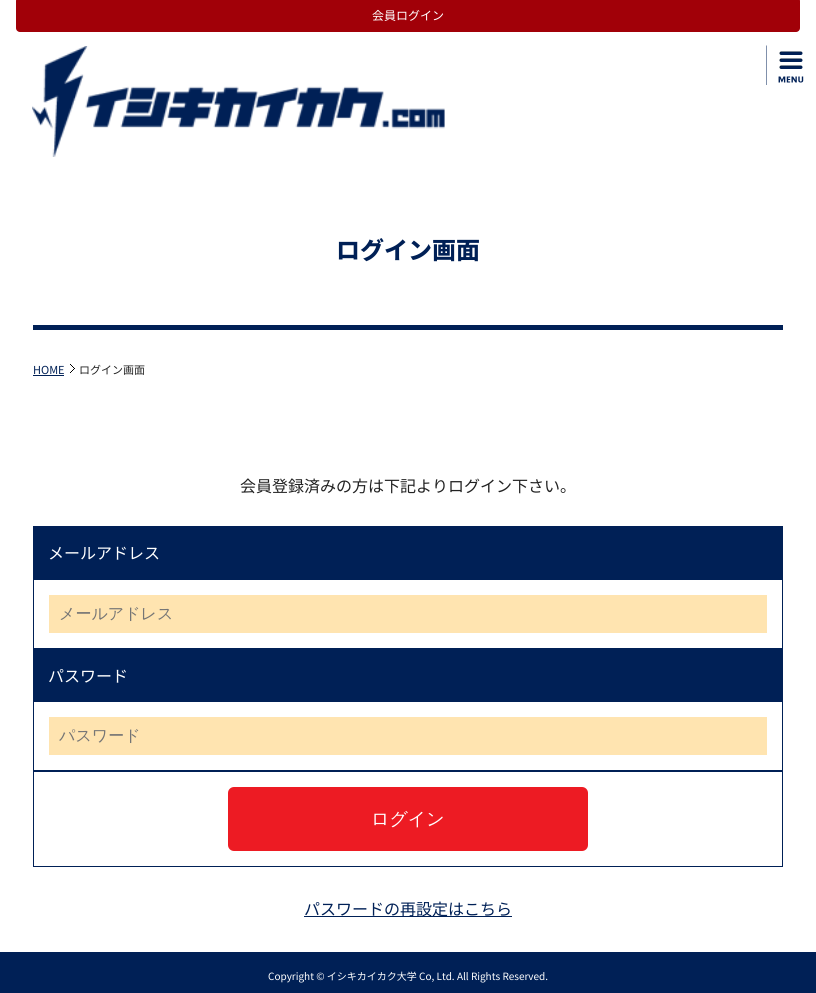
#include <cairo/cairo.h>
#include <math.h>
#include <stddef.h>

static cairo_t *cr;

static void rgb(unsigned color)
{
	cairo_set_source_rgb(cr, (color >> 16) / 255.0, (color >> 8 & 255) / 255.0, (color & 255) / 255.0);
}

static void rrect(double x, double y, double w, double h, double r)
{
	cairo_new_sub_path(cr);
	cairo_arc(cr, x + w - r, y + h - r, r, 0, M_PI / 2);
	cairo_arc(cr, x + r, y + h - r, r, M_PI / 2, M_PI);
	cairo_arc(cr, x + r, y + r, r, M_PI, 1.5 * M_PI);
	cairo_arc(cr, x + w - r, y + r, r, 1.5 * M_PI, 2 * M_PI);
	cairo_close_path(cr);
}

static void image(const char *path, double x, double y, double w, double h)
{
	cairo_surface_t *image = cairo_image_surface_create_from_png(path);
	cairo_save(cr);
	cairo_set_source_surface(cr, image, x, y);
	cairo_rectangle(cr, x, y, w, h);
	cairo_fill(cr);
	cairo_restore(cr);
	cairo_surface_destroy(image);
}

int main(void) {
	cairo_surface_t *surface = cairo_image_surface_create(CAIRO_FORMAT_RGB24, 816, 993);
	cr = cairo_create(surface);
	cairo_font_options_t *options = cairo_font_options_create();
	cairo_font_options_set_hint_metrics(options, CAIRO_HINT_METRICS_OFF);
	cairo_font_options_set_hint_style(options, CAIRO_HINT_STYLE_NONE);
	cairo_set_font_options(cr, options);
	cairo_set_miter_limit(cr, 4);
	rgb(0xffffff);
	cairo_paint(cr);
	rgb(0xa10008);
	rrect(16, -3, 784, 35, 4);
	cairo_fill(cr);
	image("img/1.png", 32, 46, 413, 111);
	image("img/2.png", 766, 45, 38, 40);
	rgb(0x002056);
	cairo_rectangle(cr, 33, 325, 750, 5);
	cairo_fill(cr);
	cairo_rectangle(cr, 33, 375, 31, 1);
	cairo_fill(cr);
	image("img/3.png", 70, 364, 5, 9);
	cairo_rectangle(cr, 33, 526, 750, 53);
	cairo_fill(cr);
	cairo_rectangle(cr, 33.5, 579.5, 749, 69);
	cairo_set_line_width(cr, 1);
	cairo_stroke(cr);
	rgb(0xffe4b0);
	cairo_rectangle(cr, 49, 595, 718, 38);
	cairo_fill(cr);
	rgb(0x002056);
	cairo_rectangle(cr, 33, 649, 750, 52);
	cairo_fill(cr);
	cairo_rectangle(cr, 33.5, 701.5, 749, 69);
	cairo_stroke(cr);
	rgb(0xffe4b0);
	cairo_rectangle(cr, 49, 717, 718, 38);
	cairo_fill(cr);
	cairo_rectangle(cr, 33.5, 771.5, 749, 95);
	rgb(0x002056);
	cairo_stroke(cr);
	rgb(0xed1b23);
	rrect(228, 787, 360, 64, 6);
	cairo_fill(cr);
	rgb(0x002056);
	cairo_rectangle(cr, 304, 916, 208, 1);
	cairo_fill(cr);
	cairo_rectangle(cr, 0, 952, 816, 41);
	cairo_fill(cr);
	cairo_select_font_face(cr, "Noto Sans JP", CAIRO_FONT_SLANT_NORMAL, CAIRO_FONT_WEIGHT_NORMAL);
	cairo_set_font_size(cr, 12);
	rgb(0xffffff);
	cairo_move_to(cr, 372, 20);
	cairo_show_text(cr, "会員ログイン");
	cairo_select_font_face(cr, "Noto Sans JP ExtraBold", CAIRO_FONT_SLANT_NORMAL, CAIRO_FONT_WEIGHT_NORMAL);
	cairo_set_font_size(cr, 24);
	rgb(0x002056);
	cairo_move_to(cr, 336, 259);
	cairo_show_text(cr, "ログイン画面");
	cairo_select_font_face(cr, "Noto Sans JP", CAIRO_FONT_SLANT_NORMAL, CAIRO_FONT_WEIGHT_NORMAL);
	cairo_set_font_size(cr, 11);
	cairo_move_to(cr, 33, 374);
	cairo_show_text(cr, "HOME");
	rgb(0x222222);
	cairo_move_to(cr, 79, 374);
	cairo_show_text(cr, "ログイン画面");
	cairo_set_font_size(cr, 16);
	cairo_move_to(cr, 240, 492);
	cairo_show_text(cr, "会員登録済みの方は下記よりログイン下さい。");
	rgb(0xffffff);
	cairo_move_to(cr, 48, 559);
	cairo_show_text(cr, "メールアドレス");
	cairo_select_font_face(cr, "WenQuanYi Zen Hei Medium", CAIRO_FONT_SLANT_NORMAL, CAIRO_FONT_WEIGHT_NORMAL);
	rgb(0x757575);
	cairo_move_to(cr, 59, 619);
	cairo_show_text(cr, "メールアドレス");
	cairo_select_font_face(cr, "Noto Sans JP", CAIRO_FONT_SLANT_NORMAL, CAIRO_FONT_WEIGHT_NORMAL);
	rgb(0xffffff);
	cairo_move_to(cr, 48, 682);
	cairo_show_text(cr, "パスワード");
	cairo_select_font_face(cr, "WenQuanYi Zen Hei Medium", CAIRO_FONT_SLANT_NORMAL, CAIRO_FONT_WEIGHT_NORMAL);
	rgb(0x757575);
	cairo_move_to(cr, 59, 741);
	cairo_show_text(cr, "パスワード");
	cairo_set_font_size(cr, 18);
	rgb(0xffffff);
	cairo_move_to(cr, 371, 825);
	cairo_show_text(cr, "ログイン");
	cairo_select_font_face(cr, "Noto Sans JP", CAIRO_FONT_SLANT_NORMAL, CAIRO_FONT_WEIGHT_NORMAL);
	cairo_set_font_size(cr, 16);
	rgb(0x002056);
	cairo_move_to(cr, 304, 915);
	cairo_show_text(cr, "パスワードの再設定はこちら");
	cairo_set_font_size(cr, 10);
	rgb(0xffffff);
	cairo_move_to(cr, 268, 980);
	cairo_show_text(cr, "Copyright © イシキカイカク大学 Co, Ltd. All Rights Reserved.");
	cairo_surface_write_to_png(surface, "page.png");
	cairo_font_options_destroy(options);
	cairo_destroy(cr);
	cairo_surface_destroy(surface);
	return 0;
}
